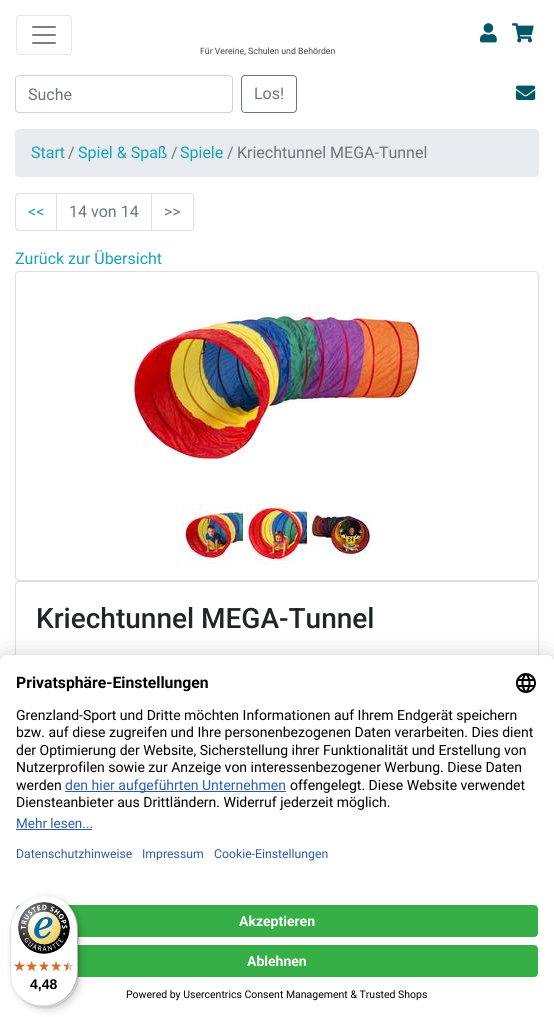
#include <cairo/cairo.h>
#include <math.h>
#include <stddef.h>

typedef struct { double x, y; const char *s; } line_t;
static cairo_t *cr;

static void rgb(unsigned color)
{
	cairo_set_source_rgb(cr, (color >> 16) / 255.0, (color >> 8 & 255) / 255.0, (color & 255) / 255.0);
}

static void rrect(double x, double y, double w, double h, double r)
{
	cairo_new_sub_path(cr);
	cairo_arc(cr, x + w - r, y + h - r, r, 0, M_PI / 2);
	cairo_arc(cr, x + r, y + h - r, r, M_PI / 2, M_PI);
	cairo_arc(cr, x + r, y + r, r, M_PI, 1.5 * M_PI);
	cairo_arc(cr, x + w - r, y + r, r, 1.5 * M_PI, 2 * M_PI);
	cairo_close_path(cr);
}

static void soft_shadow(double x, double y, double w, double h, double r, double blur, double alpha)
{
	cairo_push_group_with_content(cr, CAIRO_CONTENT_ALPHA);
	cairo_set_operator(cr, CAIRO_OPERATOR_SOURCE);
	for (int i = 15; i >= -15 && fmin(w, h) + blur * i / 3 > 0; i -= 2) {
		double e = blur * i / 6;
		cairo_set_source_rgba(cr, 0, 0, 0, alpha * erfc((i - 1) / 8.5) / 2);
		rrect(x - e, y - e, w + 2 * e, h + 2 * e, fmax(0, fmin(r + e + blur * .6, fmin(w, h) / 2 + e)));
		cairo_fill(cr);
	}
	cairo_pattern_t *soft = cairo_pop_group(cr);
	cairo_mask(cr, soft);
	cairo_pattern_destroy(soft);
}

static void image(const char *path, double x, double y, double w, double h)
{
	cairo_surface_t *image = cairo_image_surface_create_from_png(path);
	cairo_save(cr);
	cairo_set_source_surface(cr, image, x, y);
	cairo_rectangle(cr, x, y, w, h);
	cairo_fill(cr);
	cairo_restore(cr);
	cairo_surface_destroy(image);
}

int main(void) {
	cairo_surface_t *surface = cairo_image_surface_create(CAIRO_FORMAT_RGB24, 554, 1017);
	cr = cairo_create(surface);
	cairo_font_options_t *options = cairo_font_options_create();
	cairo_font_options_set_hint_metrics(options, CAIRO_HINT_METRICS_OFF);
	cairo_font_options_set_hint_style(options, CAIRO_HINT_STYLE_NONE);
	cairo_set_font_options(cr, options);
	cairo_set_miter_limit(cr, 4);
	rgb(0xffffff);
	cairo_paint(cr);
	rrect(16.5, 15.5, 55, 39, 3.5);
	rgb(0xe6e6e6);
	cairo_set_line_width(cr, 1);
	cairo_stroke(cr);
	image("img/1.png", 32, 26, 24, 18);
	image("img/2.png", 480, 23, 17, 20);
	image("img/3.png", 512, 23, 22, 20);
	rrect(15.5, 75.5, 217, 37, 3.5);
	rgb(0xced4da);
	cairo_stroke(cr);
	rrect(241.5, 75.5, 55, 37, 3.5);
	rgb(0x6c757d);
	cairo_stroke(cr);
	image("img/4.png", 516, 85, 20, 15);
	rgb(0xe9ecef);
	rrect(15, 129, 524, 48, 4);
	cairo_fill(cr);
	cairo_new_path(cr);
	cairo_move_to(cr, 19, 193.5);
	cairo_line_to(cr, 56.5, 193.5);
	cairo_line_to(cr, 56.5, 230.5);
	cairo_line_to(cr, 19, 230.5);
	cairo_curve_to(cr, 17, 230.5, 15.5, 229, 15.5, 227);
	cairo_line_to(cr, 15.5, 197);
	cairo_curve_to(cr, 15.5, 195, 17, 193.5, 19, 193.5);
	cairo_close_path(cr);
	rgb(0xdee2e6);
	cairo_stroke(cr);
	cairo_rectangle(cr, 56.5, 193.5, 95, 37);
	cairo_stroke(cr);
	rgb(0xffffff);
	cairo_new_path(cr);
	cairo_move_to(cr, 151.5, 193.5);
	cairo_line_to(cr, 190, 193.5);
	cairo_curve_to(cr, 192, 193.5, 193.5, 195, 193.5, 197);
	cairo_line_to(cr, 193.5, 227);
	cairo_curve_to(cr, 193.5, 229, 192, 230.5, 190, 230.5);
	cairo_line_to(cr, 151.5, 230.5);
	cairo_close_path(cr);
	cairo_fill_preserve(cr);
	rgb(0xdee2e6);
	cairo_stroke(cr);
	rrect(15.5, 271.5, 523, 309, 3.5);
	rgb(0xdfdfdf);
	cairo_stroke(cr);
	image("img/5.png", 127, 304, 300, 160);
	image("img/6.png", 183, 504, 60, 60);
	image("img/7.png", 247, 504, 60, 60);
	image("img/8.png", 311, 514, 60, 41);
	rrect(15.5, 581.5, 523, 374, 3.5);
	cairo_stroke(cr);
	rgb(0x000000);
	soft_shadow(0, 675, 554, 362, 8, 14, 0.3);
	soft_shadow(0, 660, 554, 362, 8, 13, 0.22);
	rgb(0xffffff);
	cairo_new_path(cr);
	cairo_move_to(cr, 8, 655);
	cairo_line_to(cr, 546, 655);
	cairo_curve_to(cr, 550.5, 655, 554, 658.5, 554, 663);
	cairo_line_to(cr, 554, 1017);
	cairo_line_to(cr, 0, 1017);
	cairo_line_to(cr, 0, 663);
	cairo_curve_to(cr, 0, 658.5, 3.5, 655, 8, 655);
	cairo_close_path(cr);
	cairo_fill(cr);
	cairo_new_path(cr);
	cairo_move_to(cr, 8, 655);
	cairo_line_to(cr, 546, 655);
	cairo_curve_to(cr, 550.5, 655, 554, 658.5, 554, 663);
	cairo_line_to(cr, 554, 893);
	cairo_line_to(cr, 0, 893);
	cairo_line_to(cr, 0, 663);
	cairo_curve_to(cr, 0, 658.5, 3.5, 655, 8, 655);
	cairo_close_path(cr);
	cairo_fill(cr);
	image("img/9.png", 516, 673, 20, 20);
	rgb(0x2a5db0);
	cairo_rectangle(cr, 65, 791, 221, 1);
	cairo_fill(cr);
	cairo_rectangle(cr, 16, 829, 76, 1);
	cairo_fill(cr);
	rgb(0x36af47);
	rrect(16, 905, 522, 32, 4);
	cairo_fill(cr);
	rrect(16, 945, 522, 32, 4);
	cairo_fill(cr);
	rgb(0x000000);
	soft_shadow(13, 898, 68, 112, 34, 4, 0.15);
	soft_shadow(11, 896, 68, 112, 34, 1, 0.15);
	rgb(0xffffff);
	rrect(10, 895, 68, 112, 34);
	cairo_fill(cr);
	rgb(0xe5e5e5);
	cairo_new_path(cr);
	cairo_move_to(cr, 45, 896);
	cairo_curve_to(cr, 53, 896, 61, 899, 67, 904);
	cairo_curve_to(cr, 50, 889, 22, 895, 13, 916);
	cairo_curve_to(cr, 8, 926, 10, 940, 10, 951);
	cairo_curve_to(cr, 10, 966, 7, 983, 19, 996);
	cairo_curve_to(cr, 14, 990, 11, 982, 11, 974);
	cairo_line_to(cr, 11, 930);
	cairo_curve_to(cr, 11, 911, 26, 896, 45, 896);
	cairo_close_path(cr);
	cairo_fill(cr);
	cairo_set_source_rgba(cr, 0, 0, 0, 0.2);
	cairo_new_path(cr);
	cairo_move_to(cr, 21, 998);
	cairo_curve_to(cr, 38, 1013, 66, 1007, 75, 986);
	cairo_curve_to(cr, 80, 976, 78, 962, 78, 951);
	cairo_curve_to(cr, 78, 936, 81, 919, 69, 906);
	cairo_curve_to(cr, 79, 919, 77, 935, 77, 950);
	cairo_curve_to(cr, 77, 961, 79, 975, 74, 985);
	cairo_curve_to(cr, 66, 1006, 38, 1012, 21, 998);
	cairo_close_path(cr);
	cairo_fill(cr);
	cairo_set_source_rgba(cr, 0.196, 0.196, 0.196, 0.2);
	cairo_new_path(cr);
	cairo_move_to(cr, 17, 994);
	cairo_curve_to(cr, 24, 1002, 33, 1007, 44, 1007);
	cairo_curve_to(cr, 63, 1007, 78, 992, 78, 973);
	cairo_line_to(cr, 78, 929);
	cairo_curve_to(cr, 78, 918, 73, 909, 65, 902);
	cairo_curve_to(cr, 72, 909, 77, 918, 77, 928);
	cairo_line_to(cr, 77, 972);
	cairo_curve_to(cr, 77, 991, 62, 1006, 43, 1006);
	cairo_curve_to(cr, 33, 1006, 24, 1001, 17, 994);
	cairo_close_path(cr);
	cairo_fill(cr);
	cairo_set_source_rgba(cr, 1, 1, 1, 0.3);
	cairo_new_path(cr);
	cairo_move_to(cr, 10, 972);
	cairo_curve_to(cr, 10, 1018, 78, 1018, 78, 972);
	cairo_curve_to(cr, 78, 991, 62, 1006, 44, 1006);
	cairo_curve_to(cr, 25, 1006, 10, 991, 10, 972);
	cairo_close_path(cr);
	cairo_fill(cr);
	image("img/10.png", 18, 902, 52, 52);
	image("img/11.png", 14, 961, 11, 10);
	image("img/12.png", 27, 961, 10, 10);
	image("img/13.png", 39, 961, 10, 10);
	image("img/14.png", 51, 961, 11, 10);
	image("img/14.png", 63, 961, 11, 10);
	image("img/15.png", 14, 961, 11, 10);
	image("img/16.png", 26, 961, 11, 10);
	image("img/17.png", 39, 961, 10, 10);
	image("img/18.png", 51, 961, 10, 10);
	image("img/19.png", 63, 962, 5, 9);
	cairo_select_font_face(cr, "Roboto", CAIRO_FONT_SLANT_NORMAL, CAIRO_FONT_WEIGHT_NORMAL);
	cairo_set_font_size(cr, 8.75);
	rgb(0x464646);
	cairo_move_to(cr, 200, 54);
	cairo_show_text(cr, "Für Vereine, Schulen und Behörden");
	cairo_set_font_size(cr, 16);
	rgb(0x6c757d);
	cairo_move_to(cr, 28, 100);
	cairo_show_text(cr, "Suche");
	cairo_move_to(cr, 254, 99);
	cairo_show_text(cr, "Los!");
	rgb(0x17a2b8);
	cairo_move_to(cr, 31, 158);
	cairo_show_text(cr, "Start");
	rgb(0x6c757d);
	cairo_move_to(cr, 68, 158);
	cairo_show_text(cr, "/");
	rgb(0x17a2b8);
	cairo_move_to(cr, 78, 158);
	cairo_show_text(cr, "Spiel & Spaß");
	rgb(0x6c757d);
	cairo_move_to(cr, 171, 158);
	cairo_show_text(cr, "/");
	rgb(0x17a2b8);
	cairo_move_to(cr, 180, 158);
	cairo_show_text(cr, "Spiele");
	rgb(0x6c757d);
	cairo_move_to(cr, 227, 158);
	cairo_show_text(cr, "/");
	cairo_move_to(cr, 237, 158);
	cairo_show_text(cr, "Kriechtunnel MEGA-Tunnel");
	rgb(0x17a2b8);
	cairo_move_to(cr, 28, 217);
	cairo_show_text(cr, "<<");
	rgb(0x6c757d);
	cairo_move_to(cr, 69, 217);
	cairo_show_text(cr, "14 von 14");
	cairo_move_to(cr, 164, 217);
	cairo_show_text(cr, ">>");
	rgb(0x17a2b8);
	cairo_move_to(cr, 15, 264);
	cairo_show_text(cr, "Zurück zur Übersicht");
	cairo_select_font_face(cr, "Roboto Medium", CAIRO_FONT_SLANT_NORMAL, CAIRO_FONT_WEIGHT_NORMAL);
	cairo_set_font_size(cr, 28);
	rgb(0x212529);
	cairo_move_to(cr, 36, 628);
	cairo_show_text(cr, "Kriechtunnel MEGA-Tunnel");
	cairo_select_font_face(cr, "Roboto", CAIRO_FONT_SLANT_NORMAL, CAIRO_FONT_WEIGHT_BOLD);
	cairo_set_font_size(cr, 15.75);
	rgb(0x000000);
	cairo_move_to(cr, 16, 688);
	cairo_show_text(cr, "Privatsphäre-Einstellungen");
	cairo_select_font_face(cr, "Roboto", CAIRO_FONT_SLANT_NORMAL, CAIRO_FONT_WEIGHT_NORMAL);
	cairo_set_font_size(cr, 14);
	{
		static const line_t items[] = {
			{16, 720, "Grenzland-Sport und Dritte möchten Informationen auf Ihrem Endgerät speichern"},
			{16, 737, "bzw. auf diese zugreifen und Ihre personenbezogenen Daten verarbeiten. Dies dient"},
			{16, 755, "der Optimierung der Website, Sicherstellung ihrer Funktionalität und Erstellung von"},
			{16, 772, "Nutzerprofilen sowie zur Anzeige von interessenbezogener Werbung. Diese Daten"},
			{16, 790, "werden"},
		};
		for (size_t i = 0; i < sizeof items / sizeof *items; i++) {
			cairo_move_to(cr, items[i].x, items[i].y);
			cairo_show_text(cr, items[i].s);
		}
	}
	rgb(0x2a5db0);
	cairo_move_to(cr, 65, 790);
	cairo_show_text(cr, "den hier aufgeführten Unternehmen");
	rgb(0x000000);
	cairo_move_to(cr, 290, 790);
	cairo_show_text(cr, "offengelegt. Diese Website verwendet");
	cairo_move_to(cr, 16, 807);
	cairo_show_text(cr, "Diensteanbieter aus Drittländern. Widerruf jederzeit möglich.");
	cairo_set_font_size(cr, 13.5);
	rgb(0x2a5db0);
	cairo_move_to(cr, 16, 828);
	cairo_show_text(cr, "Mehr lesen...");
	cairo_set_font_size(cr, 12.25);
	{
		static const line_t items[] = {
			{16, 858, "Datenschutzhinweise"},
			{142, 858, "Impressum"},
			{214, 858, "Cookie-Einstellungen"},
		};
		for (size_t i = 0; i < sizeof items / sizeof *items; i++) {
			cairo_move_to(cr, items[i].x, items[i].y);
			cairo_show_text(cr, items[i].s);
		}
	}
	cairo_select_font_face(cr, "Roboto", CAIRO_FONT_SLANT_NORMAL, CAIRO_FONT_WEIGHT_BOLD);
	cairo_set_font_size(cr, 14);
	rgb(0xffffff);
	cairo_move_to(cr, 239, 926);
	cairo_show_text(cr, "Akzeptieren");
	cairo_move_to(cr, 247, 966);
	cairo_show_text(cr, "Ablehnen");
	cairo_select_font_face(cr, "Roboto", CAIRO_FONT_SLANT_NORMAL, CAIRO_FONT_WEIGHT_NORMAL);
	cairo_set_font_size(cr, 10.5);
	rgb(0x000000);
	cairo_move_to(cr, 126, 998);
	cairo_show_text(cr, "Powered by Usercentrics Consent Management & Trusted Shops");
	cairo_select_font_face(cr, "Liberation Sans", CAIRO_FONT_SLANT_NORMAL, CAIRO_FONT_WEIGHT_BOLD);
	cairo_set_font_size(cr, 14);
	cairo_move_to(cr, 30, 989);
	cairo_show_text(cr, "4,48");
	cairo_surface_write_to_png(surface, "page.png");
	cairo_font_options_destroy(options);
	cairo_destroy(cr);
	cairo_surface_destroy(surface);
	return 0;
}
